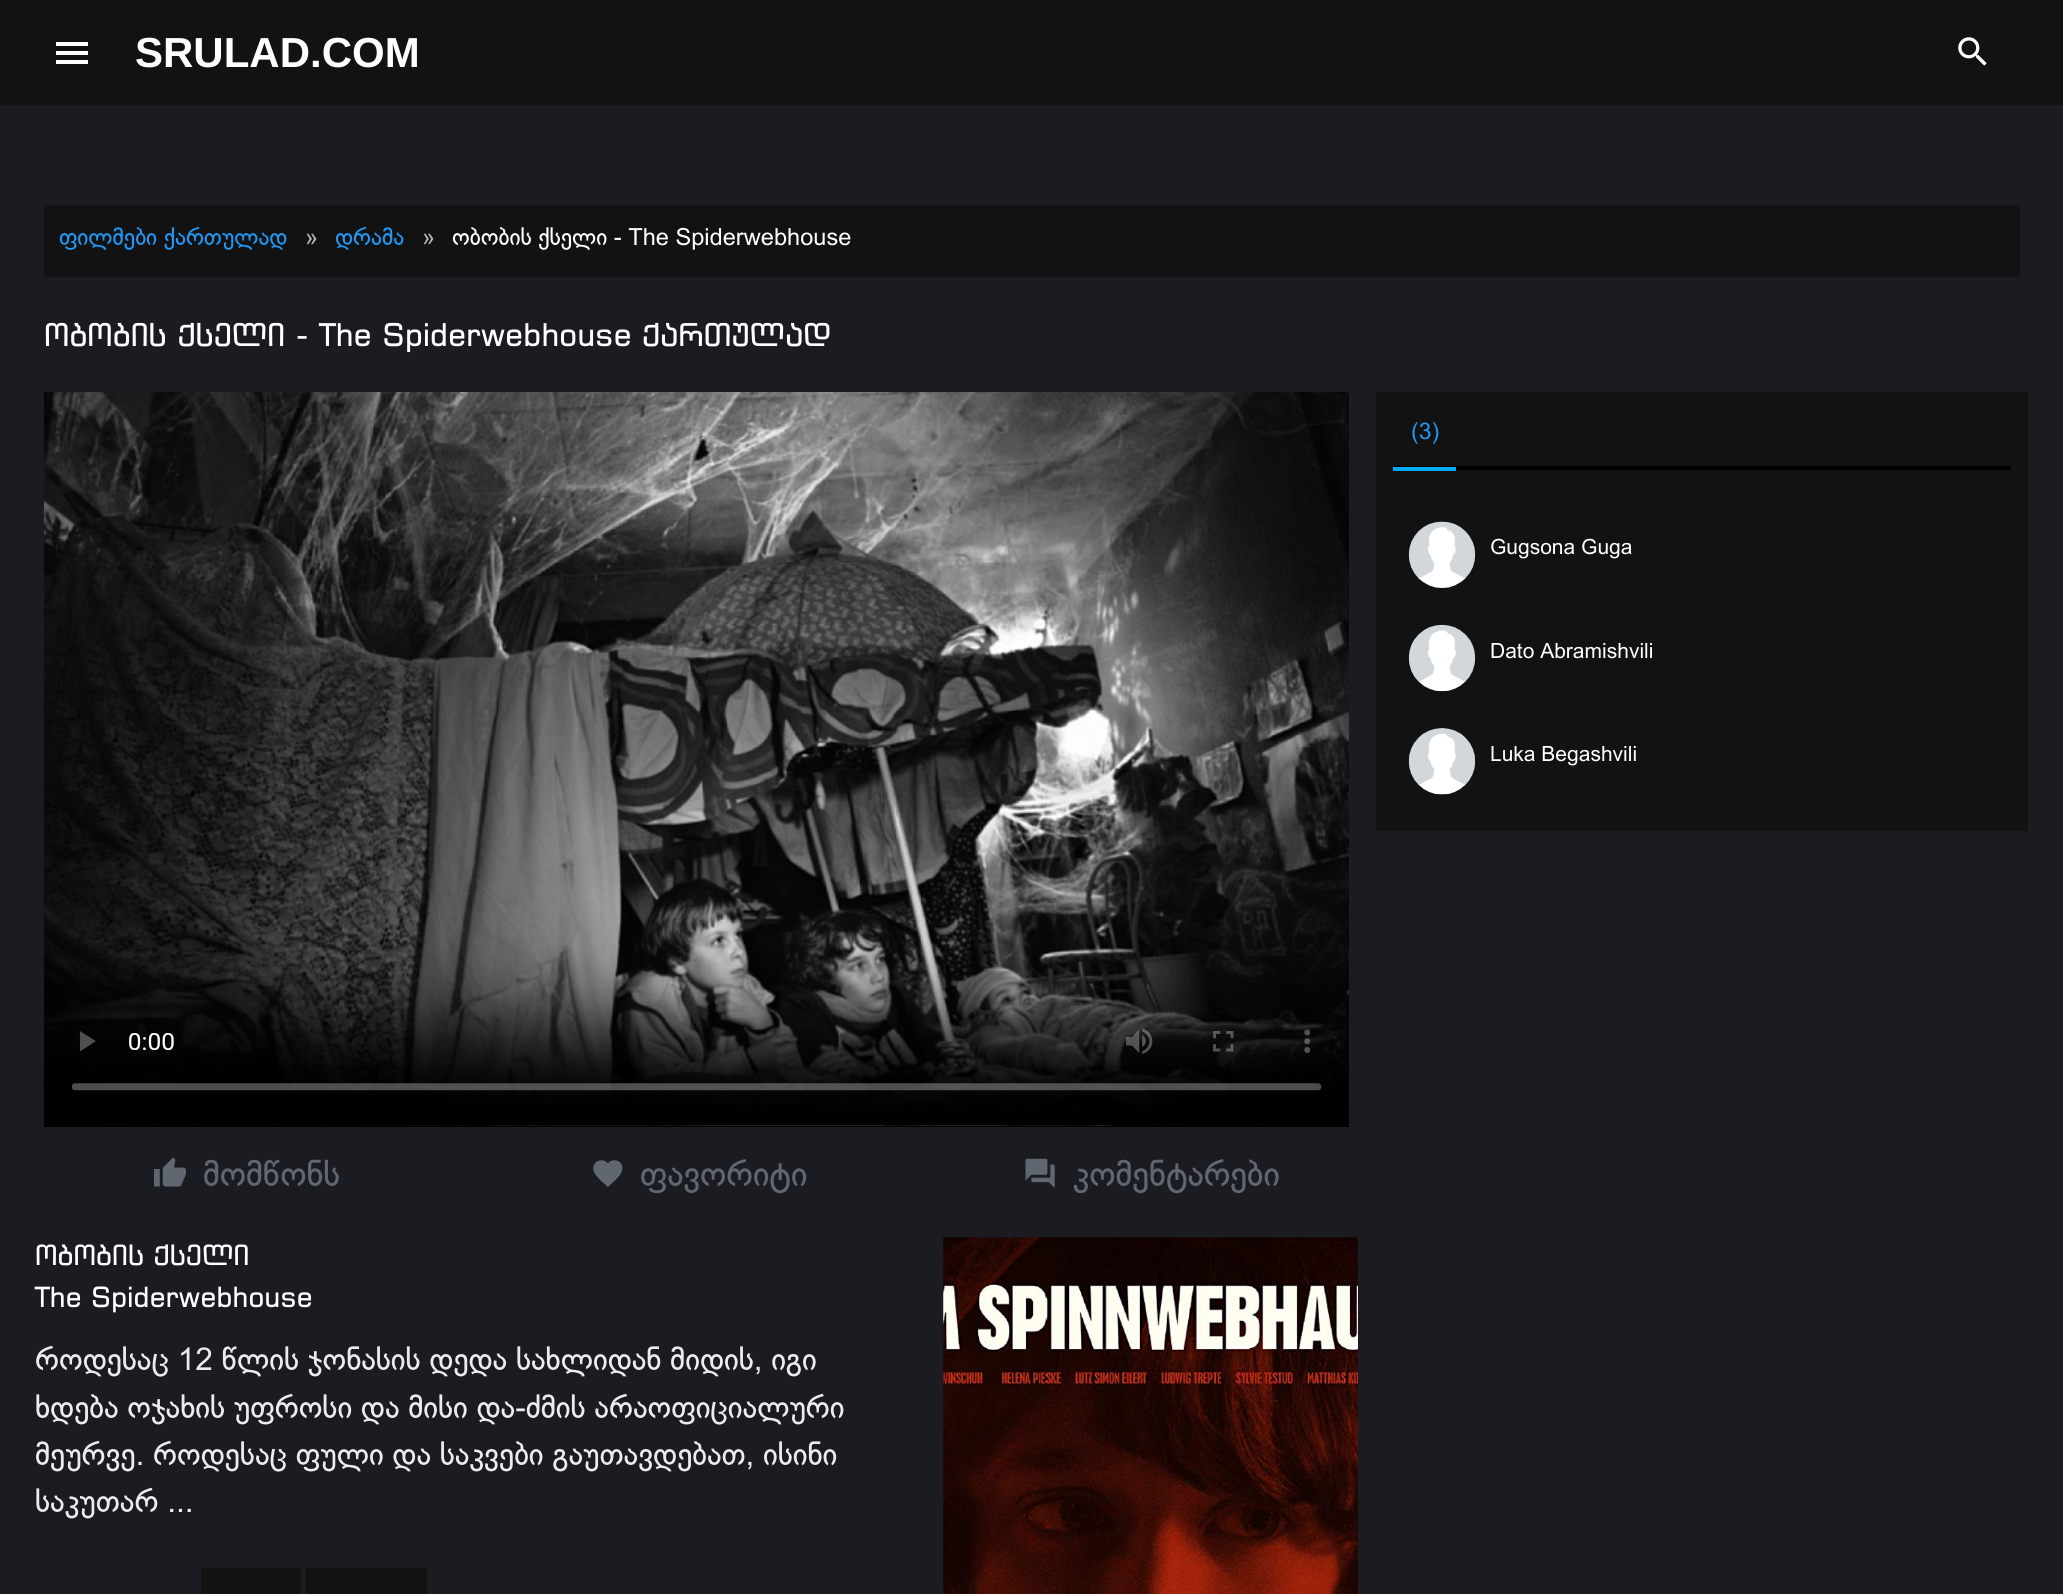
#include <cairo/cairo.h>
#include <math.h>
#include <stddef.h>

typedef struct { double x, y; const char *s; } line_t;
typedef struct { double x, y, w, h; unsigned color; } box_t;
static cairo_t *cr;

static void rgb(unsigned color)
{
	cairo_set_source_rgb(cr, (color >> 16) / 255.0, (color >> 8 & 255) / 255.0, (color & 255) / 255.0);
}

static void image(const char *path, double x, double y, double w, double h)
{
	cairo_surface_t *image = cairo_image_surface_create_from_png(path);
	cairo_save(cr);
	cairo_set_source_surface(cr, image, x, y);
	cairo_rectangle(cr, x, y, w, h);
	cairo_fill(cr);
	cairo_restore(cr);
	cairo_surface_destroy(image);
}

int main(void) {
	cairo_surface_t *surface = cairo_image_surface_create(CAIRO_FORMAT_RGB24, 2063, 1594);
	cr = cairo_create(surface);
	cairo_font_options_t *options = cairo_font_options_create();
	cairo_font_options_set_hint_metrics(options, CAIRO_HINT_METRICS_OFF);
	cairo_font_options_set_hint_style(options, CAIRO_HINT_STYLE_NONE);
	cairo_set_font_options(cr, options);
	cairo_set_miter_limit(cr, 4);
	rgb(0x1a1c21);
	cairo_paint(cr);
	{
		static const box_t items[] = {
			{0, 0, 2063, 105, 0x121212},
			{56, 42, 32, 4, 0xffffff},
			{56, 51, 32, 4, 0xffffff},
			{56, 60, 32, 4, 0xffffff},
		};
		for (size_t i = 0; i < sizeof items / sizeof *items; i++) {
			rgb(items[i].color);
			cairo_rectangle(cr, items[i].x, items[i].y, items[i].w, items[i].h);
			cairo_fill(cr);
		}
	}
	image("img/1.png", 1958, 37, 29, 29);
	{
		static const box_t items[] = {
			{44, 205, 1976, 72, 0x121212},
			{1376, 392, 652, 439, 0x121212},
			{1393, 466, 618, 4, 0x000000},
			{1393, 467, 63, 4, 0x03a9f4},
		};
		for (size_t i = 0; i < sizeof items / sizeof *items; i++) {
			rgb(items[i].color);
			cairo_rectangle(cr, items[i].x, items[i].y, items[i].w, items[i].h);
			cairo_fill(cr);
		}
	}
	image("img/2.png", 1408, 521, 68, 67);
	image("img/3.png", 1408, 624, 68, 68);
	image("img/4.png", 1408, 728, 68, 67);
	rgb(0x000000);
	cairo_rectangle(cr, 44, 1125, 1305, 2);
	cairo_fill(cr);
	image("img/5.png", 43, 392, 1306, 734);
	image("img/6.png", 154, 1157, 33, 30);
	image("img/7.png", 593, 1160, 30, 27);
	image("img/8.png", 1025, 1158, 30, 30);
	rgb(0x121212);
	cairo_rectangle(cr, 201, 1568, 100, 26);
	cairo_fill(cr);
	cairo_rectangle(cr, 306, 1568, 121, 26);
	cairo_fill(cr);
	image("img/9.png", 943, 1237, 415, 357);
	cairo_select_font_face(cr, "Liberation Sans", CAIRO_FONT_SLANT_NORMAL, CAIRO_FONT_WEIGHT_BOLD);
	cairo_set_font_size(cr, 42);
	rgb(0xffffff);
	cairo_move_to(cr, 135, 67);
	cairo_show_text(cr, "SRULAD.COM");
	cairo_select_font_face(cr, "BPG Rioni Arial", CAIRO_FONT_SLANT_NORMAL, CAIRO_FONT_WEIGHT_NORMAL);
	cairo_set_font_size(cr, 23.6);
	rgb(0x2196f3);
	cairo_move_to(cr, 59, 245);
	cairo_show_text(cr, "ფილმები ქართულად");
	rgb(0xb7b7b7);
	cairo_move_to(cr, 305, 245);
	cairo_show_text(cr, "»");
	rgb(0x2196f3);
	cairo_move_to(cr, 335, 245);
	cairo_show_text(cr, "დრამა");
	rgb(0xb7b7b7);
	cairo_move_to(cr, 422, 245);
	cairo_show_text(cr, "»");
	rgb(0xffffff);
	cairo_move_to(cr, 452, 245);
	cairo_show_text(cr, "ობობის ქსელი - The Spiderwebhouse");
	cairo_select_font_face(cr, "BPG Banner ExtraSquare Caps", CAIRO_FONT_SLANT_NORMAL, CAIRO_FONT_WEIGHT_NORMAL);
	cairo_set_font_size(cr, 31.5);
	cairo_move_to(cr, 44, 346);
	cairo_show_text(cr, "ობობის ქსელი - The Spiderwebhouse ქართულად");
	cairo_select_font_face(cr, "BPG Rioni Arial", CAIRO_FONT_SLANT_NORMAL, CAIRO_FONT_WEIGHT_NORMAL);
	cairo_set_font_size(cr, 23);
	rgb(0x2196f3);
	cairo_move_to(cr, 1411, 439);
	cairo_show_text(cr, "(3)");
	cairo_set_font_size(cr, 21);
	rgb(0xffffff);
	{
		static const line_t items[] = {
			{1490, 554, "Gugsona Guga"},
			{1490, 658, "Dato Abramishvili"},
			{1490, 761, "Luka Begashvili"},
		};
		for (size_t i = 0; i < sizeof items / sizeof *items; i++) {
			cairo_move_to(cr, items[i].x, items[i].y);
			cairo_show_text(cr, items[i].s);
		}
	}
	cairo_set_font_size(cr, 35);
	rgb(0x606770);
	{
		static const line_t items[] = {
			{203, 1186, "მომწონს"},
			{640, 1186, "ფავორიტი"},
			{1073, 1186, "კომენტარები"},
		};
		for (size_t i = 0; i < sizeof items / sizeof *items; i++) {
			cairo_move_to(cr, items[i].x, items[i].y);
			cairo_show_text(cr, items[i].s);
		}
	}
	cairo_select_font_face(cr, "BPG Banner ExtraSquare Caps", CAIRO_FONT_SLANT_NORMAL, CAIRO_FONT_WEIGHT_NORMAL);
	cairo_set_font_size(cr, 28);
	rgb(0xffffff);
	cairo_move_to(cr, 35, 1265);
	cairo_show_text(cr, "ობობის ქსელი");
	cairo_move_to(cr, 35, 1307);
	cairo_show_text(cr, "The Spiderwebhouse");
	cairo_select_font_face(cr, "BPG Rioni Arial", CAIRO_FONT_SLANT_NORMAL, CAIRO_FONT_WEIGHT_NORMAL);
	cairo_set_font_size(cr, 31.5);
	rgb(0xececec);
	{
		static const line_t items[] = {
			{35, 1370, "როდესაც 12 წლის ჯონასის დედა სახლიდან მიდის, იგი"},
			{35, 1418, "ხდება ოჯახის უფროსი და მისი და-ძმის არაოფიციალური"},
			{35, 1465, "მეურვე. როდესაც ფული და საკვები გაუთავდებათ, ისინი"},
			{35, 1512, "საკუთარ ..."},
		};
		for (size_t i = 0; i < sizeof items / sizeof *items; i++) {
			cairo_move_to(cr, items[i].x, items[i].y);
			cairo_show_text(cr, items[i].s);
		}
	}
	cairo_surface_write_to_png(surface, "page.png");
	cairo_font_options_destroy(options);
	cairo_destroy(cr);
	cairo_surface_destroy(surface);
	return 0;
}
